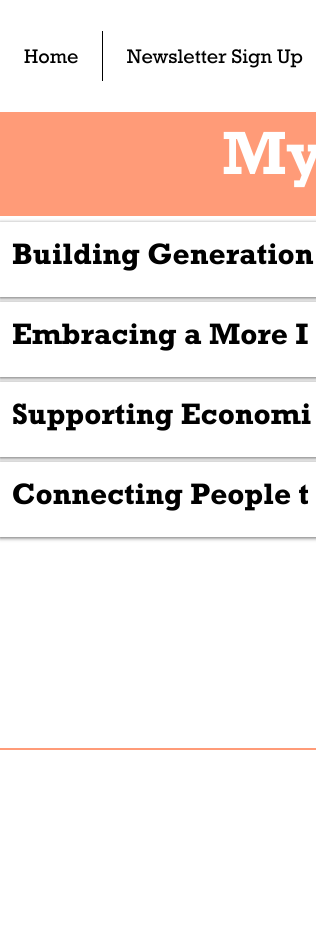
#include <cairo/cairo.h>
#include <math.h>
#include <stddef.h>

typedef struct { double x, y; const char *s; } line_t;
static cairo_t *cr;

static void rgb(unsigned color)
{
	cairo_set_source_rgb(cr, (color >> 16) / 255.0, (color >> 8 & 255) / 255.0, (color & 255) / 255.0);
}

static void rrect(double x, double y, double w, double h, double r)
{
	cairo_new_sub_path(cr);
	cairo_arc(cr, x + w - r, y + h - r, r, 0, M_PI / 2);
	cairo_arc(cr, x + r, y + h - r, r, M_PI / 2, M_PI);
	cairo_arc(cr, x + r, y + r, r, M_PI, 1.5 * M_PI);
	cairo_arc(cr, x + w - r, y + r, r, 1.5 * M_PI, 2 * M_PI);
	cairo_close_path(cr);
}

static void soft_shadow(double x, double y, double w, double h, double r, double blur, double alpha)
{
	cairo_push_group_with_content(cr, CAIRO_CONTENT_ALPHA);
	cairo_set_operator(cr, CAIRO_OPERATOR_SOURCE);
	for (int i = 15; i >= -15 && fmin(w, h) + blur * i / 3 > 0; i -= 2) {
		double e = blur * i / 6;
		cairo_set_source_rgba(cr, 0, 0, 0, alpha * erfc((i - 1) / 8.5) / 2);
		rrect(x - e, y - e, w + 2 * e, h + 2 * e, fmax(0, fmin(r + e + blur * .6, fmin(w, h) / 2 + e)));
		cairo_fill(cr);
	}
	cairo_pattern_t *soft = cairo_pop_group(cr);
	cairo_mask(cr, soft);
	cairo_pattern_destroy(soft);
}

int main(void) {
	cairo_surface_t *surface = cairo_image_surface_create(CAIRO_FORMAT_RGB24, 316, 941);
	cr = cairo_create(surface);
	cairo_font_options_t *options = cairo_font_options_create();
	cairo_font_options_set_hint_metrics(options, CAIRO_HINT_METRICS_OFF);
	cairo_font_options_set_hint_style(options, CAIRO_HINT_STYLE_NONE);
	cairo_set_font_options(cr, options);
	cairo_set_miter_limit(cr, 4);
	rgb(0xffffff);
	cairo_paint(cr);
	rgb(0x000000);
	cairo_rectangle(cr, 102, 31, 1, 50);
	cairo_fill(cr);
	rgb(0xff9b78);
	cairo_rectangle(cr, 0, 112, 316, 104);
	cairo_fill(cr);
	cairo_save(cr);
	cairo_set_fill_rule(cr, CAIRO_FILL_RULE_EVEN_ODD);
	cairo_new_path(cr);
	cairo_move_to(cr, 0, 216);
	cairo_line_to(cr, 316, 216);
	cairo_line_to(cr, 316, 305);
	cairo_line_to(cr, 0, 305);
	cairo_close_path(cr);
	cairo_move_to(cr, 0, 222);
	cairo_line_to(cr, 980, 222);
	cairo_line_to(cr, 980, 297);
	cairo_line_to(cr, 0, 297);
	cairo_close_path(cr);
	cairo_clip(cr);
	rgb(0x000000);
	soft_shadow(0, 223, 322, 75, 0, 2, 0.6);
	cairo_restore(cr);
	rgb(0x000000);
	soft_shadow(0, 303, 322, 75, 0, 2, 0.6);
	rgb(0xffffff);
	cairo_rectangle(cr, 0, 302, 316, 75);
	cairo_fill(cr);
	rgb(0x000000);
	soft_shadow(0, 383, 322, 75, 0, 2, 0.6);
	rgb(0xffffff);
	cairo_rectangle(cr, 0, 382, 316, 75);
	cairo_fill(cr);
	rgb(0x000000);
	soft_shadow(0, 463, 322, 75, 0, 2, 0.6);
	rgb(0xffffff);
	cairo_rectangle(cr, 0, 462, 316, 75);
	cairo_fill(cr);
	rgb(0xff9b78);
	cairo_rectangle(cr, 0, 748, 316, 2);
	cairo_fill(cr);
	cairo_select_font_face(cr, "Rockwell", CAIRO_FONT_SLANT_NORMAL, CAIRO_FONT_WEIGHT_NORMAL);
	cairo_set_font_size(cr, 20);
	rgb(0x000000);
	cairo_move_to(cr, 24, 63);
	cairo_show_text(cr, "Home");
	cairo_move_to(cr, 127, 63);
	cairo_show_text(cr, "Newsletter Sign Up");
	cairo_select_font_face(cr, "Rockwell", CAIRO_FONT_SLANT_NORMAL, CAIRO_FONT_WEIGHT_BOLD);
	cairo_set_font_size(cr, 62);
	rgb(0xffffff);
	cairo_move_to(cr, 222, 174);
	cairo_show_text(cr, "My");
	cairo_set_font_size(cr, 30);
	rgb(0x000000);
	{
		static const line_t items[] = {
			{12, 264, "Building Generation"},
			{12, 344, "Embracing a More I"},
			{12, 424, "Supporting Economi"},
			{12, 504, "Connecting People t"},
		};
		for (size_t i = 0; i < sizeof items / sizeof *items; i++) {
			cairo_move_to(cr, items[i].x, items[i].y);
			cairo_show_text(cr, items[i].s);
		}
	}
	cairo_surface_write_to_png(surface, "page.png");
	cairo_font_options_destroy(options);
	cairo_destroy(cr);
	cairo_surface_destroy(surface);
	return 0;
}
